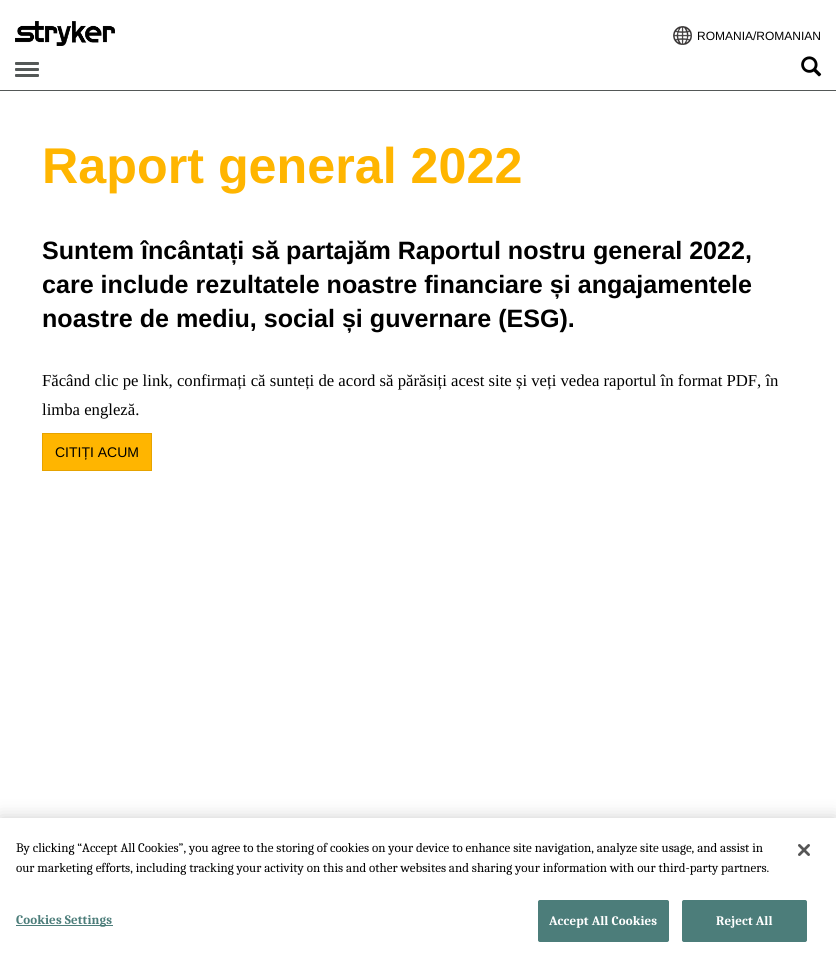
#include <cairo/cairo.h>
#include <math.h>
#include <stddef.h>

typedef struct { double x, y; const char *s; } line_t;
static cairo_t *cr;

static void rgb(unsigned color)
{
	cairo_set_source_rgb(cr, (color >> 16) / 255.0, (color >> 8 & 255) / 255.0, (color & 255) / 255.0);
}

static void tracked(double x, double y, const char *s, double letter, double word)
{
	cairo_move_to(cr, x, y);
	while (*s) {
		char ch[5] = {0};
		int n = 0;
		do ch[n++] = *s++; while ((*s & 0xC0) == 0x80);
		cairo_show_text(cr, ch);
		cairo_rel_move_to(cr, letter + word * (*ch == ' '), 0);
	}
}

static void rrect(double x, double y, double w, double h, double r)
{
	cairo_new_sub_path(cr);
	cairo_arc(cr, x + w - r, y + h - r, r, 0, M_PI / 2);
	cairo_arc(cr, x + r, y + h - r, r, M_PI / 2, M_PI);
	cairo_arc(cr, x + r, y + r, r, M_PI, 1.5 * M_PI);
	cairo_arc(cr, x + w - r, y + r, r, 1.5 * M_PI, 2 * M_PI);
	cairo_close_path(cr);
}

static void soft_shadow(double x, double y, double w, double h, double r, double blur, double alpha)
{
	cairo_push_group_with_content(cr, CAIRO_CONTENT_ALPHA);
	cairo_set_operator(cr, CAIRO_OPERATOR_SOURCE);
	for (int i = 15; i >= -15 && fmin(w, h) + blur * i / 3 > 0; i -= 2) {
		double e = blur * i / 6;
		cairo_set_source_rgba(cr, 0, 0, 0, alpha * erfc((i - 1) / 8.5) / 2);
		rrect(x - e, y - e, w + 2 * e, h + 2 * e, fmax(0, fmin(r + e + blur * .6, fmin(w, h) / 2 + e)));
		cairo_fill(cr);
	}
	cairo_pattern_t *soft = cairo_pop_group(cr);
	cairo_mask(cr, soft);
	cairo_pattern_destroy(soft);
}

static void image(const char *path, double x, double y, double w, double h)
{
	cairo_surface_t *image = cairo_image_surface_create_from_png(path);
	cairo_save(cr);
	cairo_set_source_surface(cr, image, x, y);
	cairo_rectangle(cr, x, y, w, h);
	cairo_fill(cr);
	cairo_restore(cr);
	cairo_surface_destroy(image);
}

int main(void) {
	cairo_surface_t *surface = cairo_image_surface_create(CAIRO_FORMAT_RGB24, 836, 956);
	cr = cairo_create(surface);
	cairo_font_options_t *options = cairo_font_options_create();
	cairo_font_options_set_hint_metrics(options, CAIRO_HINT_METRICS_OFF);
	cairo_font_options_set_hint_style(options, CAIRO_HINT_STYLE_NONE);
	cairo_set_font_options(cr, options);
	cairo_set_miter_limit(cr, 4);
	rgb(0xffffff);
	cairo_paint(cr);
	rgb(0x545857);
	cairo_rectangle(cr, 0, 90, 836, 1);
	cairo_fill(cr);
	image("img/1.png", 15, 21, 100, 25);
	image("img/2.png", 673, 26, 19, 19);
	rrect(15, 62, 24, 3, 1);
	cairo_fill(cr);
	rrect(15, 68, 24, 3, 1);
	cairo_fill(cr);
	rrect(15, 74, 24, 3, 1);
	cairo_fill(cr);
	image("img/3.png", 801, 56, 21, 21);
	rgb(0xffb500);
	cairo_rectangle(cr, 42.5, 433.5, 109, 37);
	cairo_fill_preserve(cr);
	rgb(0xe6a300);
	cairo_set_line_width(cr, 1);
	cairo_stroke(cr);
	rgb(0x000000);
	soft_shadow(0, 818, 836, 138, 0, 9, 0.2);
	rgb(0xffffff);
	cairo_rectangle(cr, 0, 818, 836, 138);
	cairo_fill(cr);
	rgb(0x4c7d7a);
	cairo_rectangle(cr, 16, 925, 97, 1);
	cairo_fill(cr);
	rrect(538.5, 900.5, 130, 41, 1.5);
	cairo_fill_preserve(cr);
	cairo_stroke(cr);
	rrect(682.5, 900.5, 124, 41, 1.5);
	cairo_fill_preserve(cr);
	cairo_stroke(cr);
	image("img/4.png", 798, 844, 12, 12);
	cairo_select_font_face(cr, "Liberation Sans", CAIRO_FONT_SLANT_NORMAL, CAIRO_FONT_WEIGHT_NORMAL);
	cairo_set_font_size(cr, 12);
	rgb(0x000000);
	cairo_move_to(cr, 697, 40);
	cairo_show_text(cr, "ROMANIA/ROMANIAN");
	cairo_select_font_face(cr, "Liberation Sans", CAIRO_FONT_SLANT_NORMAL, CAIRO_FONT_WEIGHT_BOLD);
	cairo_set_font_size(cr, 50.25);
	rgb(0xffb500);
	cairo_move_to(cr, 42, 183);
	cairo_show_text(cr, "Raport general 2022");
	cairo_set_font_size(cr, 25.1);
	rgb(0x000000);
	{
		static const line_t items[] = {
			{42, 259, "Suntem încântați să partajăm Raportul nostru general 2022,"},
			{42, 293, "care include rezultatele noastre financiare și angajamentele"},
			{42, 327, "noastre de mediu, social și guvernare (ESG)."},
		};
		for (size_t i = 0; i < sizeof items / sizeof *items; i++) {
			cairo_move_to(cr, items[i].x, items[i].y);
			cairo_show_text(cr, items[i].s);
		}
	}
	cairo_select_font_face(cr, "Liberation Serif", CAIRO_FONT_SLANT_NORMAL, CAIRO_FONT_WEIGHT_NORMAL);
	cairo_set_font_size(cr, 16.7);
	cairo_move_to(cr, 42, 386);
	cairo_show_text(cr, "Făcând clic pe link, confirmați că sunteți de acord să părăsiți acest site și veți vedea raportul în format PDF, în");
	cairo_move_to(cr, 42, 415);
	cairo_show_text(cr, "limba engleză.");
	cairo_select_font_face(cr, "Liberation Sans", CAIRO_FONT_SLANT_NORMAL, CAIRO_FONT_WEIGHT_NORMAL);
	cairo_set_font_size(cr, 14);
	cairo_move_to(cr, 55, 457);
	cairo_show_text(cr, "CITIȚI ACUM");
	cairo_select_font_face(cr, "Caladea", CAIRO_FONT_SLANT_NORMAL, CAIRO_FONT_WEIGHT_NORMAL);
	cairo_set_font_size(cr, 13);
	cairo_move_to(cr, 16, 852);
	cairo_show_text(cr, "By clicking “Accept All Cookies”, you agree to the storing of cookies on your device to enhance site navigation, analyze site usage, and assist in");
	cairo_move_to(cr, 16, 872);
	cairo_show_text(cr, "our marketing efforts, including tracking your activity on this and other websites and sharing your information with our third-party partners.");
	cairo_select_font_face(cr, "Caladea", CAIRO_FONT_SLANT_NORMAL, CAIRO_FONT_WEIGHT_BOLD);
	rgb(0x4c7d7a);
	tracked(16, 924, "Cookies Settings", 0.1, 0);
	rgb(0xffffff);
	tracked(549, 925, "Accept All Cookies", 0.1, 0);
	tracked(716, 925, "Reject All", 0.1, 0);
	cairo_surface_write_to_png(surface, "page.png");
	cairo_font_options_destroy(options);
	cairo_destroy(cr);
	cairo_surface_destroy(surface);
	return 0;
}
